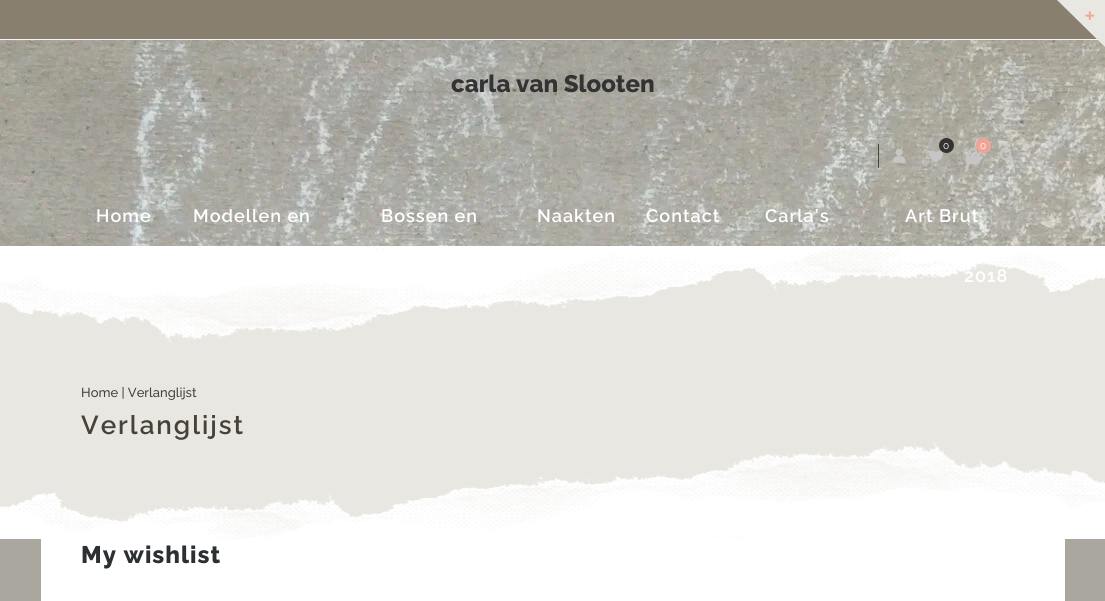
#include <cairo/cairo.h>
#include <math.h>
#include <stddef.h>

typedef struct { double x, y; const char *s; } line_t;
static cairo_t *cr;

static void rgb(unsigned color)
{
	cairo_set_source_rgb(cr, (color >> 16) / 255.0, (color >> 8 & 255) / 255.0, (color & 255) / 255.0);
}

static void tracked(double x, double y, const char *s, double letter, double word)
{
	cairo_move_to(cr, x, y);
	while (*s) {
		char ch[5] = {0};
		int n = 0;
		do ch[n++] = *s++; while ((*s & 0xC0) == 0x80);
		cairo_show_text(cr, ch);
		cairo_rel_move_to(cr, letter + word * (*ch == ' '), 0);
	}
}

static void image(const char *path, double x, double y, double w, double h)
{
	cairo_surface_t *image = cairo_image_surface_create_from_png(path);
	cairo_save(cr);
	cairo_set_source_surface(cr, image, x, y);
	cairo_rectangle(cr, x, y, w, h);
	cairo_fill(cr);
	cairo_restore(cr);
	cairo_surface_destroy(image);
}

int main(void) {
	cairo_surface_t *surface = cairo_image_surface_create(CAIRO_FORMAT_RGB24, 1105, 601);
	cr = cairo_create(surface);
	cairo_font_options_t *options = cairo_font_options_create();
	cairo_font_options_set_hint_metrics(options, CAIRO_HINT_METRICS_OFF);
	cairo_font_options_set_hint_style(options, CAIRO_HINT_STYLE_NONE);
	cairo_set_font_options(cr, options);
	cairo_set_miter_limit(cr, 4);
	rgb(0xa9a79e);
	cairo_paint(cr);
	image("img/2.png", 0, 40, 1105, 206);
	rgb(0x887f6e);
	cairo_rectangle(cr, 0, 0, 1097, 39);
	cairo_fill(cr);
	rgb(0xf5f5f5);
	cairo_rectangle(cr, 0, 39, 1105, 1);
	cairo_fill(cr);
	rgb(0xe9e7e2);
	cairo_new_path(cr);
	cairo_move_to(cr, 1057, 0);
	cairo_line_to(cr, 1082, -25);
	cairo_line_to(cr, 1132, 24);
	cairo_line_to(cr, 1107, 49);
	cairo_close_path(cr);
	cairo_fill(cr);
	image("img/1.png", 1085, 11, 10, 9);
	cairo_set_source_rgba(cr, 0, 0, 0, 0.6);
	cairo_rectangle(cr, 878, 144, 1, 24);
	cairo_fill(cr);
	image("img/3.png", 893, 148, 13, 15);
	image("img/4.png", 929, 150, 14, 13);
	rgb(0x333333);
	cairo_arc(cr, 946.5, 145.5, 7.5, 0, 2 * M_PI);
	cairo_fill(cr);
	image("img/5.png", 966, 148, 14, 16);
	rgb(0xf3a395);
	cairo_arc(cr, 983.5, 145.5, 7.5, 0, 2 * M_PI);
	cairo_fill(cr);
	image("img/6.png", 1000, 149, 14, 14);
	rgb(0xe9e7e2);
	cairo_rectangle(cr, 0, 246, 1105, 293);
	cairo_fill(cr);
	image("img/7.png", 0, 246, 1105, 98);
	image("img/8.png", 0, 441, 1105, 98);
	rgb(0xffffff);
	cairo_rectangle(cr, 41, 539, 1024, 62);
	cairo_fill(cr);
	cairo_select_font_face(cr, "Raleway ExtraBold", CAIRO_FONT_SLANT_NORMAL, CAIRO_FONT_WEIGHT_NORMAL);
	cairo_set_font_size(cr, 24);
	rgb(0x333333);
	cairo_move_to(cr, 451, 92);
	cairo_show_text(cr, "carla van Slooten");
	cairo_select_font_face(cr, "Raleway", CAIRO_FONT_SLANT_NORMAL, CAIRO_FONT_WEIGHT_NORMAL);
	cairo_set_font_size(cr, 10);
	rgb(0xffffff);
	cairo_move_to(cr, 943, 149);
	cairo_show_text(cr, "0");
	cairo_move_to(cr, 980, 149);
	cairo_show_text(cr, "0");
	cairo_select_font_face(cr, "Raleway SemiBold", CAIRO_FONT_SLANT_NORMAL, CAIRO_FONT_WEIGHT_NORMAL);
	cairo_set_font_size(cr, 18);
	{
		static const line_t items[] = {
			{96, 222, "Home"},
			{193, 222, "Modellen en"},
			{381, 222, "Bossen en"},
			{537, 222, "Naakten"},
			{646, 222, "Contact"},
			{765, 222, "Carla’s"},
			{905, 222, "Art Brut"},
			{964, 282, "2018"},
		};
		for (size_t i = 0; i < sizeof items / sizeof *items; i++) {
			tracked(items[i].x, items[i].y, items[i].s, 1, 0);
		}
	}
	cairo_select_font_face(cr, "Raleway Medium", CAIRO_FONT_SLANT_NORMAL, CAIRO_FONT_WEIGHT_NORMAL);
	cairo_set_font_size(cr, 13);
	rgb(0x474237);
	cairo_move_to(cr, 81, 397);
	cairo_show_text(cr, "Home | Verlanglijst");
	cairo_select_font_face(cr, "Raleway SemiBold", CAIRO_FONT_SLANT_NORMAL, CAIRO_FONT_WEIGHT_NORMAL);
	cairo_set_font_size(cr, 26);
	tracked(81, 434, "Verlanglijst", 2, 0);
	cairo_select_font_face(cr, "Raleway ExtraBold", CAIRO_FONT_SLANT_NORMAL, CAIRO_FONT_WEIGHT_NORMAL);
	cairo_set_font_size(cr, 24);
	rgb(0x2b3033);
	tracked(81, 563, "My wishlist", 1, 0);
	cairo_surface_write_to_png(surface, "page.png");
	cairo_font_options_destroy(options);
	cairo_destroy(cr);
	cairo_surface_destroy(surface);
	return 0;
}
